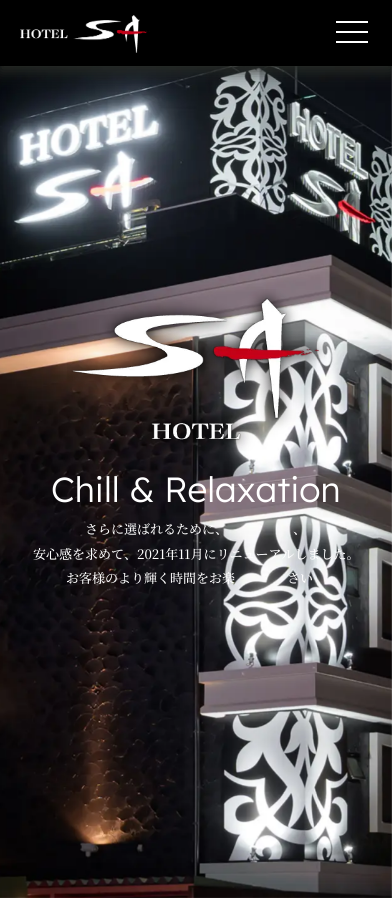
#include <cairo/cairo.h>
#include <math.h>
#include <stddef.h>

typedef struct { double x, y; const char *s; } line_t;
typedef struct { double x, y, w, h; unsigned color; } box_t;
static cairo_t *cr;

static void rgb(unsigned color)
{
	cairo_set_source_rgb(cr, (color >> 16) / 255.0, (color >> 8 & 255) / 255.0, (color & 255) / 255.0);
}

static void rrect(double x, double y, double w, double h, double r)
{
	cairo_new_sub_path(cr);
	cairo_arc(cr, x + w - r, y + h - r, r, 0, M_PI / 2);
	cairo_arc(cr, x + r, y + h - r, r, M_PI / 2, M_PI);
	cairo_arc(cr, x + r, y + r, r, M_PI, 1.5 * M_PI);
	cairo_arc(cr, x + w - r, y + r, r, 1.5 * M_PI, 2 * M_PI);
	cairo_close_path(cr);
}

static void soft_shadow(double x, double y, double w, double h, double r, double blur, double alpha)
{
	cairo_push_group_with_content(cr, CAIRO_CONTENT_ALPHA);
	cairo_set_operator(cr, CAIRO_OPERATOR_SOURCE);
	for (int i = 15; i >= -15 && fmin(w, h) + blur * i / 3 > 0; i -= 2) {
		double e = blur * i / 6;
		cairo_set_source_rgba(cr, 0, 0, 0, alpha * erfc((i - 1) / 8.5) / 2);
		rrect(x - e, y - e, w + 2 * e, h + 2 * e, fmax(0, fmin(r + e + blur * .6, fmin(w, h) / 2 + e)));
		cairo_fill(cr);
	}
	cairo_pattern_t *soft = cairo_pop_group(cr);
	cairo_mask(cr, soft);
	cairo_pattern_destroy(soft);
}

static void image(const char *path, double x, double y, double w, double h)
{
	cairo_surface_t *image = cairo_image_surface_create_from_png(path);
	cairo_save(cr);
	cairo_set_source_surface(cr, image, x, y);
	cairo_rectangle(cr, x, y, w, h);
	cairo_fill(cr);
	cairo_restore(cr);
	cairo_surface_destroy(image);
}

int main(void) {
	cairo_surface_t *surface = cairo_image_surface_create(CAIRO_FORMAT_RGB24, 392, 898);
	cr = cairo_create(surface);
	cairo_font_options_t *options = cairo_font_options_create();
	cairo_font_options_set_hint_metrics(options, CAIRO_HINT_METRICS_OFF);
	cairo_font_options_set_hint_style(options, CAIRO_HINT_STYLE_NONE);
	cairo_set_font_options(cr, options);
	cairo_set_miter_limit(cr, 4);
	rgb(0xffffff);
	cairo_paint(cr);
	image("img/1.png", 0, 66, 392, 832);
	rgb(0x2a2e28);
	soft_shadow(0, 5, 392, 66, 0, 7.5, 1);
	rgb(0x000000);
	cairo_rectangle(cr, 0, 0, 392, 66);
	cairo_fill(cr);
	image("img/2.png", 20, 15, 130, 38);
	{
		static const box_t items[] = {
			{336, 21, 32, 2, 0xffffff},
			{336, 31, 32, 2, 0xffffff},
			{336, 41, 32, 2, 0xffffff},
		};
		for (size_t i = 0; i < sizeof items / sizeof *items; i++) {
			rgb(items[i].color);
			cairo_rectangle(cr, items[i].x, items[i].y, items[i].w, items[i].h);
			cairo_fill(cr);
		}
	}
	image("img/3.png", 67, 289, 260, 162);
	cairo_select_font_face(cr, "Lexend Light", CAIRO_FONT_SLANT_NORMAL, CAIRO_FONT_WEIGHT_NORMAL);
	cairo_set_font_size(cr, 35);
	cairo_move_to(cr, 51, 502);
	cairo_show_text(cr, "Chill & Relaxation");
	cairo_select_font_face(cr, "Noto Serif JP ExtraLight", CAIRO_FONT_SLANT_NORMAL, CAIRO_FONT_WEIGHT_NORMAL);
	cairo_set_font_size(cr, 13);
	{
		static const line_t items[] = {
			{85, 534, "さらに選ばれるために、"},
			{293, 534, "、"},
			{33, 559, "安心感を求めて、2021年11月にリニューアルしました。"},
			{66, 583, "お客様のより輝く時間をお楽"},
			{287, 583, "さい"},
		};
		for (size_t i = 0; i < sizeof items / sizeof *items; i++) {
			cairo_move_to(cr, items[i].x, items[i].y);
			cairo_show_text(cr, items[i].s);
		}
	}
	cairo_surface_write_to_png(surface, "page.png");
	cairo_font_options_destroy(options);
	cairo_destroy(cr);
	cairo_surface_destroy(surface);
	return 0;
}
